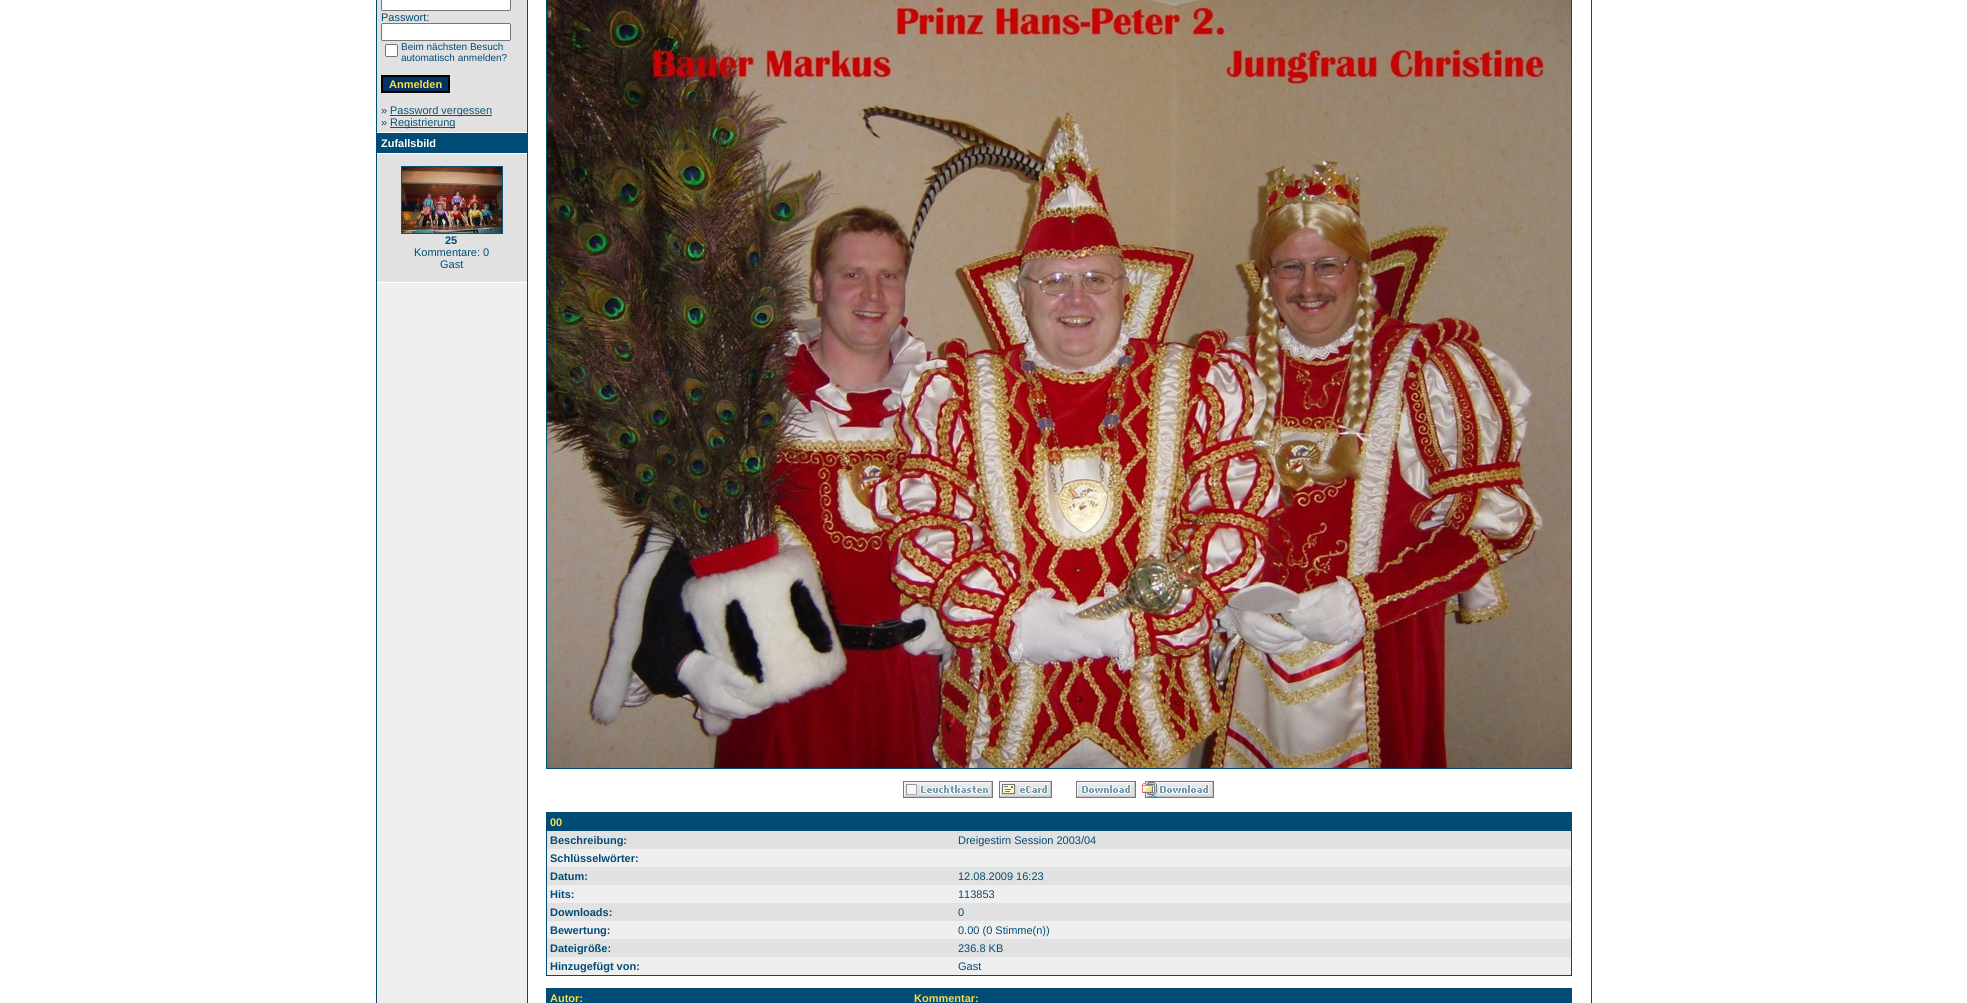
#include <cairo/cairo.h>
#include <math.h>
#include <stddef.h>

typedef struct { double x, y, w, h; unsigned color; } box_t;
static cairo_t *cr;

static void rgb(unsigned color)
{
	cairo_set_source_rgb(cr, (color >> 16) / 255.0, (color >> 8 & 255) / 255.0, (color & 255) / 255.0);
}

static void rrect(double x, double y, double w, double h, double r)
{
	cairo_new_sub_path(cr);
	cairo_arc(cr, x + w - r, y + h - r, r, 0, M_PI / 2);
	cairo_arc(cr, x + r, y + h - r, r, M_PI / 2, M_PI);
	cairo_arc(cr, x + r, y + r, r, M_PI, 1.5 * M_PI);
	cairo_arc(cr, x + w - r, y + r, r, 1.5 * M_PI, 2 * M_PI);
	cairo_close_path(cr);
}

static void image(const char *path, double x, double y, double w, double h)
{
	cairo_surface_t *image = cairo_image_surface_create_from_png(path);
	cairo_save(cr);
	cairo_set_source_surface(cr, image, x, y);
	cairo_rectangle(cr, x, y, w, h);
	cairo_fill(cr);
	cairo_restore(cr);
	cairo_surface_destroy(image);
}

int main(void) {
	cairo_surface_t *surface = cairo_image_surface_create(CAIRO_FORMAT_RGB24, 1967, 1003);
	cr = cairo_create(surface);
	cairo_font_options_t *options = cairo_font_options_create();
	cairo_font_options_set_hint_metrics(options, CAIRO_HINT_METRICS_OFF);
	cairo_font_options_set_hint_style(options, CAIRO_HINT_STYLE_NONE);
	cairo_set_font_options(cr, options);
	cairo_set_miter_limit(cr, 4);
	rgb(0xffffff);
	cairo_paint(cr);
	{
		static const box_t items[] = {
			{376, 0, 1216, 1003, 0x004c75},
			{528, 0, 1063, 1003, 0xffffff},
			{377, 283, 150, 720, 0xefefef},
			{377, 0, 150, 132, 0xe1e1e1},
		};
		for (size_t i = 0; i < sizeof items / sizeof *items; i++) {
			rgb(items[i].color);
			cairo_rectangle(cr, items[i].x, items[i].y, items[i].w, items[i].h);
			cairo_fill(cr);
		}
	}
	rgb(0xffffff);
	rrect(381.5, -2.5, 129, 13, 1.5);
	cairo_fill_preserve(cr);
	rgb(0x767676);
	cairo_set_line_width(cr, 1);
	cairo_stroke(cr);
	rgb(0xffffff);
	rrect(381.5, 23.5, 129, 17, 1.5);
	cairo_fill_preserve(cr);
	rgb(0x767676);
	cairo_stroke(cr);
	rgb(0xffffff);
	rrect(385.5, 44.5, 12, 12, 1.5);
	cairo_fill_preserve(cr);
	rgb(0x767676);
	cairo_stroke(cr);
	rgb(0x003366);
	cairo_rectangle(cr, 382, 76, 67, 16);
	cairo_fill_preserve(cr);
	rgb(0x000000);
	cairo_set_line_width(cr, 2);
	cairo_stroke(cr);
	{
		static const box_t items[] = {
			{390, 115, 102, 1, 0x0f5475},
			{390, 127, 65, 1, 0x0f5475},
			{377, 132, 150, 1, 0xffffff},
			{377, 153, 150, 1, 0xffffff},
			{377, 154, 150, 128, 0xe1e1e1},
		};
		for (size_t i = 0; i < sizeof items / sizeof *items; i++) {
			rgb(items[i].color);
			cairo_rectangle(cr, items[i].x, items[i].y, items[i].w, items[i].h);
			cairo_fill(cr);
		}
	}
	cairo_rectangle(cr, 401.5, 166.5, 101, 67);
	rgb(0x0f5475);
	cairo_set_line_width(cr, 1);
	cairo_stroke(cr);
	image("img/1.png", 402, 167, 100, 66);
	rgb(0xffffff);
	cairo_rectangle(cr, 377, 282, 150, 1);
	cairo_fill(cr);
	cairo_rectangle(cr, 546.5, -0.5, 1025, 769);
	rgb(0x004c75);
	cairo_stroke(cr);
	image("img/2.png", 547, 0, 1024, 768);
	image("img/3.png", 903, 781, 90, 17);
	image("img/4.png", 999, 781, 53, 17);
	image("img/5.png", 1076, 781, 60, 17);
	image("img/6.png", 1142, 781, 72, 17);
	{
		static const box_t items[] = {
			{546, 812, 1026, 164, 0x004c75},
			{547, 831, 1024, 18, 0xe1e1e1},
			{547, 849, 1024, 18, 0xefefef},
			{547, 867, 1024, 18, 0xe1e1e1},
			{547, 885, 1024, 18, 0xefefef},
			{547, 903, 1024, 18, 0xe1e1e1},
			{547, 921, 1024, 18, 0xefefef},
			{547, 939, 1024, 18, 0xe1e1e1},
			{547, 957, 1024, 18, 0xefefef},
			{546, 988, 1026, 15, 0x004c75},
		};
		for (size_t i = 0; i < sizeof items / sizeof *items; i++) {
			rgb(items[i].color);
			cairo_rectangle(cr, items[i].x, items[i].y, items[i].w, items[i].h);
			cairo_fill(cr);
		}
	}
	cairo_select_font_face(cr, "Liberation Sans", CAIRO_FONT_SLANT_NORMAL, CAIRO_FONT_WEIGHT_NORMAL);
	cairo_set_font_size(cr, 11);
	cairo_move_to(cr, 381, 21);
	cairo_show_text(cr, "Passwort:");
	cairo_set_font_size(cr, 10);
	cairo_move_to(cr, 401, 50);
	cairo_show_text(cr, "Beim nächsten Besuch");
	cairo_move_to(cr, 401, 61);
	cairo_show_text(cr, "automatisch anmelden?");
	cairo_select_font_face(cr, "Liberation Sans", CAIRO_FONT_SLANT_NORMAL, CAIRO_FONT_WEIGHT_BOLD);
	cairo_set_font_size(cr, 11);
	rgb(0xfcdc43);
	cairo_move_to(cr, 389, 88);
	cairo_show_text(cr, "Anmelden");
	cairo_select_font_face(cr, "Liberation Sans", CAIRO_FONT_SLANT_NORMAL, CAIRO_FONT_WEIGHT_NORMAL);
	rgb(0x004c75);
	cairo_move_to(cr, 381, 114);
	cairo_show_text(cr, "»");
	rgb(0x0f5475);
	cairo_move_to(cr, 390, 114);
	cairo_show_text(cr, "Password vergessen");
	rgb(0x004c75);
	cairo_move_to(cr, 381, 126);
	cairo_show_text(cr, "»");
	rgb(0x0f5475);
	cairo_move_to(cr, 390, 126);
	cairo_show_text(cr, "Registrierung");
	cairo_select_font_face(cr, "Liberation Sans", CAIRO_FONT_SLANT_NORMAL, CAIRO_FONT_WEIGHT_BOLD);
	rgb(0xffffff);
	cairo_move_to(cr, 381, 147);
	cairo_show_text(cr, "Zufallsbild");
	rgb(0x004c75);
	cairo_move_to(cr, 445, 244);
	cairo_show_text(cr, "25");
	cairo_select_font_face(cr, "Liberation Sans", CAIRO_FONT_SLANT_NORMAL, CAIRO_FONT_WEIGHT_NORMAL);
	cairo_move_to(cr, 414, 256);
	cairo_show_text(cr, "Kommentare: 0");
	cairo_move_to(cr, 440, 268);
	cairo_show_text(cr, "Gast");
	cairo_select_font_face(cr, "Liberation Sans", CAIRO_FONT_SLANT_NORMAL, CAIRO_FONT_WEIGHT_BOLD);
	rgb(0xfcdc43);
	cairo_move_to(cr, 550, 826);
	cairo_show_text(cr, "00");
	rgb(0x004c75);
	cairo_move_to(cr, 550, 844);
	cairo_show_text(cr, "Beschreibung:");
	cairo_select_font_face(cr, "Liberation Sans", CAIRO_FONT_SLANT_NORMAL, CAIRO_FONT_WEIGHT_NORMAL);
	cairo_move_to(cr, 958, 844);
	cairo_show_text(cr, "Dreigestirn Session 2003/04");
	cairo_select_font_face(cr, "Liberation Sans", CAIRO_FONT_SLANT_NORMAL, CAIRO_FONT_WEIGHT_BOLD);
	cairo_move_to(cr, 550, 862);
	cairo_show_text(cr, "Schlüsselwörter:");
	cairo_move_to(cr, 550, 880);
	cairo_show_text(cr, "Datum:");
	cairo_select_font_face(cr, "Liberation Sans", CAIRO_FONT_SLANT_NORMAL, CAIRO_FONT_WEIGHT_NORMAL);
	cairo_move_to(cr, 958, 880);
	cairo_show_text(cr, "12.08.2009 16:23");
	cairo_select_font_face(cr, "Liberation Sans", CAIRO_FONT_SLANT_NORMAL, CAIRO_FONT_WEIGHT_BOLD);
	cairo_move_to(cr, 550, 898);
	cairo_show_text(cr, "Hits:");
	cairo_select_font_face(cr, "Liberation Sans", CAIRO_FONT_SLANT_NORMAL, CAIRO_FONT_WEIGHT_NORMAL);
	cairo_move_to(cr, 958, 898);
	cairo_show_text(cr, "113853");
	cairo_select_font_face(cr, "Liberation Sans", CAIRO_FONT_SLANT_NORMAL, CAIRO_FONT_WEIGHT_BOLD);
	cairo_move_to(cr, 550, 916);
	cairo_show_text(cr, "Downloads:");
	cairo_select_font_face(cr, "Liberation Sans", CAIRO_FONT_SLANT_NORMAL, CAIRO_FONT_WEIGHT_NORMAL);
	cairo_move_to(cr, 958, 916);
	cairo_show_text(cr, "0");
	cairo_select_font_face(cr, "Liberation Sans", CAIRO_FONT_SLANT_NORMAL, CAIRO_FONT_WEIGHT_BOLD);
	cairo_move_to(cr, 550, 934);
	cairo_show_text(cr, "Bewertung:");
	cairo_select_font_face(cr, "Liberation Sans", CAIRO_FONT_SLANT_NORMAL, CAIRO_FONT_WEIGHT_NORMAL);
	cairo_move_to(cr, 958, 934);
	cairo_show_text(cr, "0.00 (0 Stimme(n))");
	cairo_select_font_face(cr, "Liberation Sans", CAIRO_FONT_SLANT_NORMAL, CAIRO_FONT_WEIGHT_BOLD);
	cairo_move_to(cr, 550, 952);
	cairo_show_text(cr, "Dateigröße:");
	cairo_select_font_face(cr, "Liberation Sans", CAIRO_FONT_SLANT_NORMAL, CAIRO_FONT_WEIGHT_NORMAL);
	cairo_move_to(cr, 958, 952);
	cairo_show_text(cr, "236.8 KB");
	cairo_select_font_face(cr, "Liberation Sans", CAIRO_FONT_SLANT_NORMAL, CAIRO_FONT_WEIGHT_BOLD);
	cairo_move_to(cr, 550, 970);
	cairo_show_text(cr, "Hinzugefügt von:");
	cairo_select_font_face(cr, "Liberation Sans", CAIRO_FONT_SLANT_NORMAL, CAIRO_FONT_WEIGHT_NORMAL);
	cairo_move_to(cr, 958, 970);
	cairo_show_text(cr, "Gast");
	cairo_select_font_face(cr, "Liberation Sans", CAIRO_FONT_SLANT_NORMAL, CAIRO_FONT_WEIGHT_BOLD);
	rgb(0xfcdc43);
	cairo_move_to(cr, 550, 1002);
	cairo_show_text(cr, "Autor:");
	cairo_move_to(cr, 914, 1002);
	cairo_show_text(cr, "Kommentar:");
	cairo_surface_write_to_png(surface, "page.png");
	cairo_font_options_destroy(options);
	cairo_destroy(cr);
	cairo_surface_destroy(surface);
	return 0;
}
